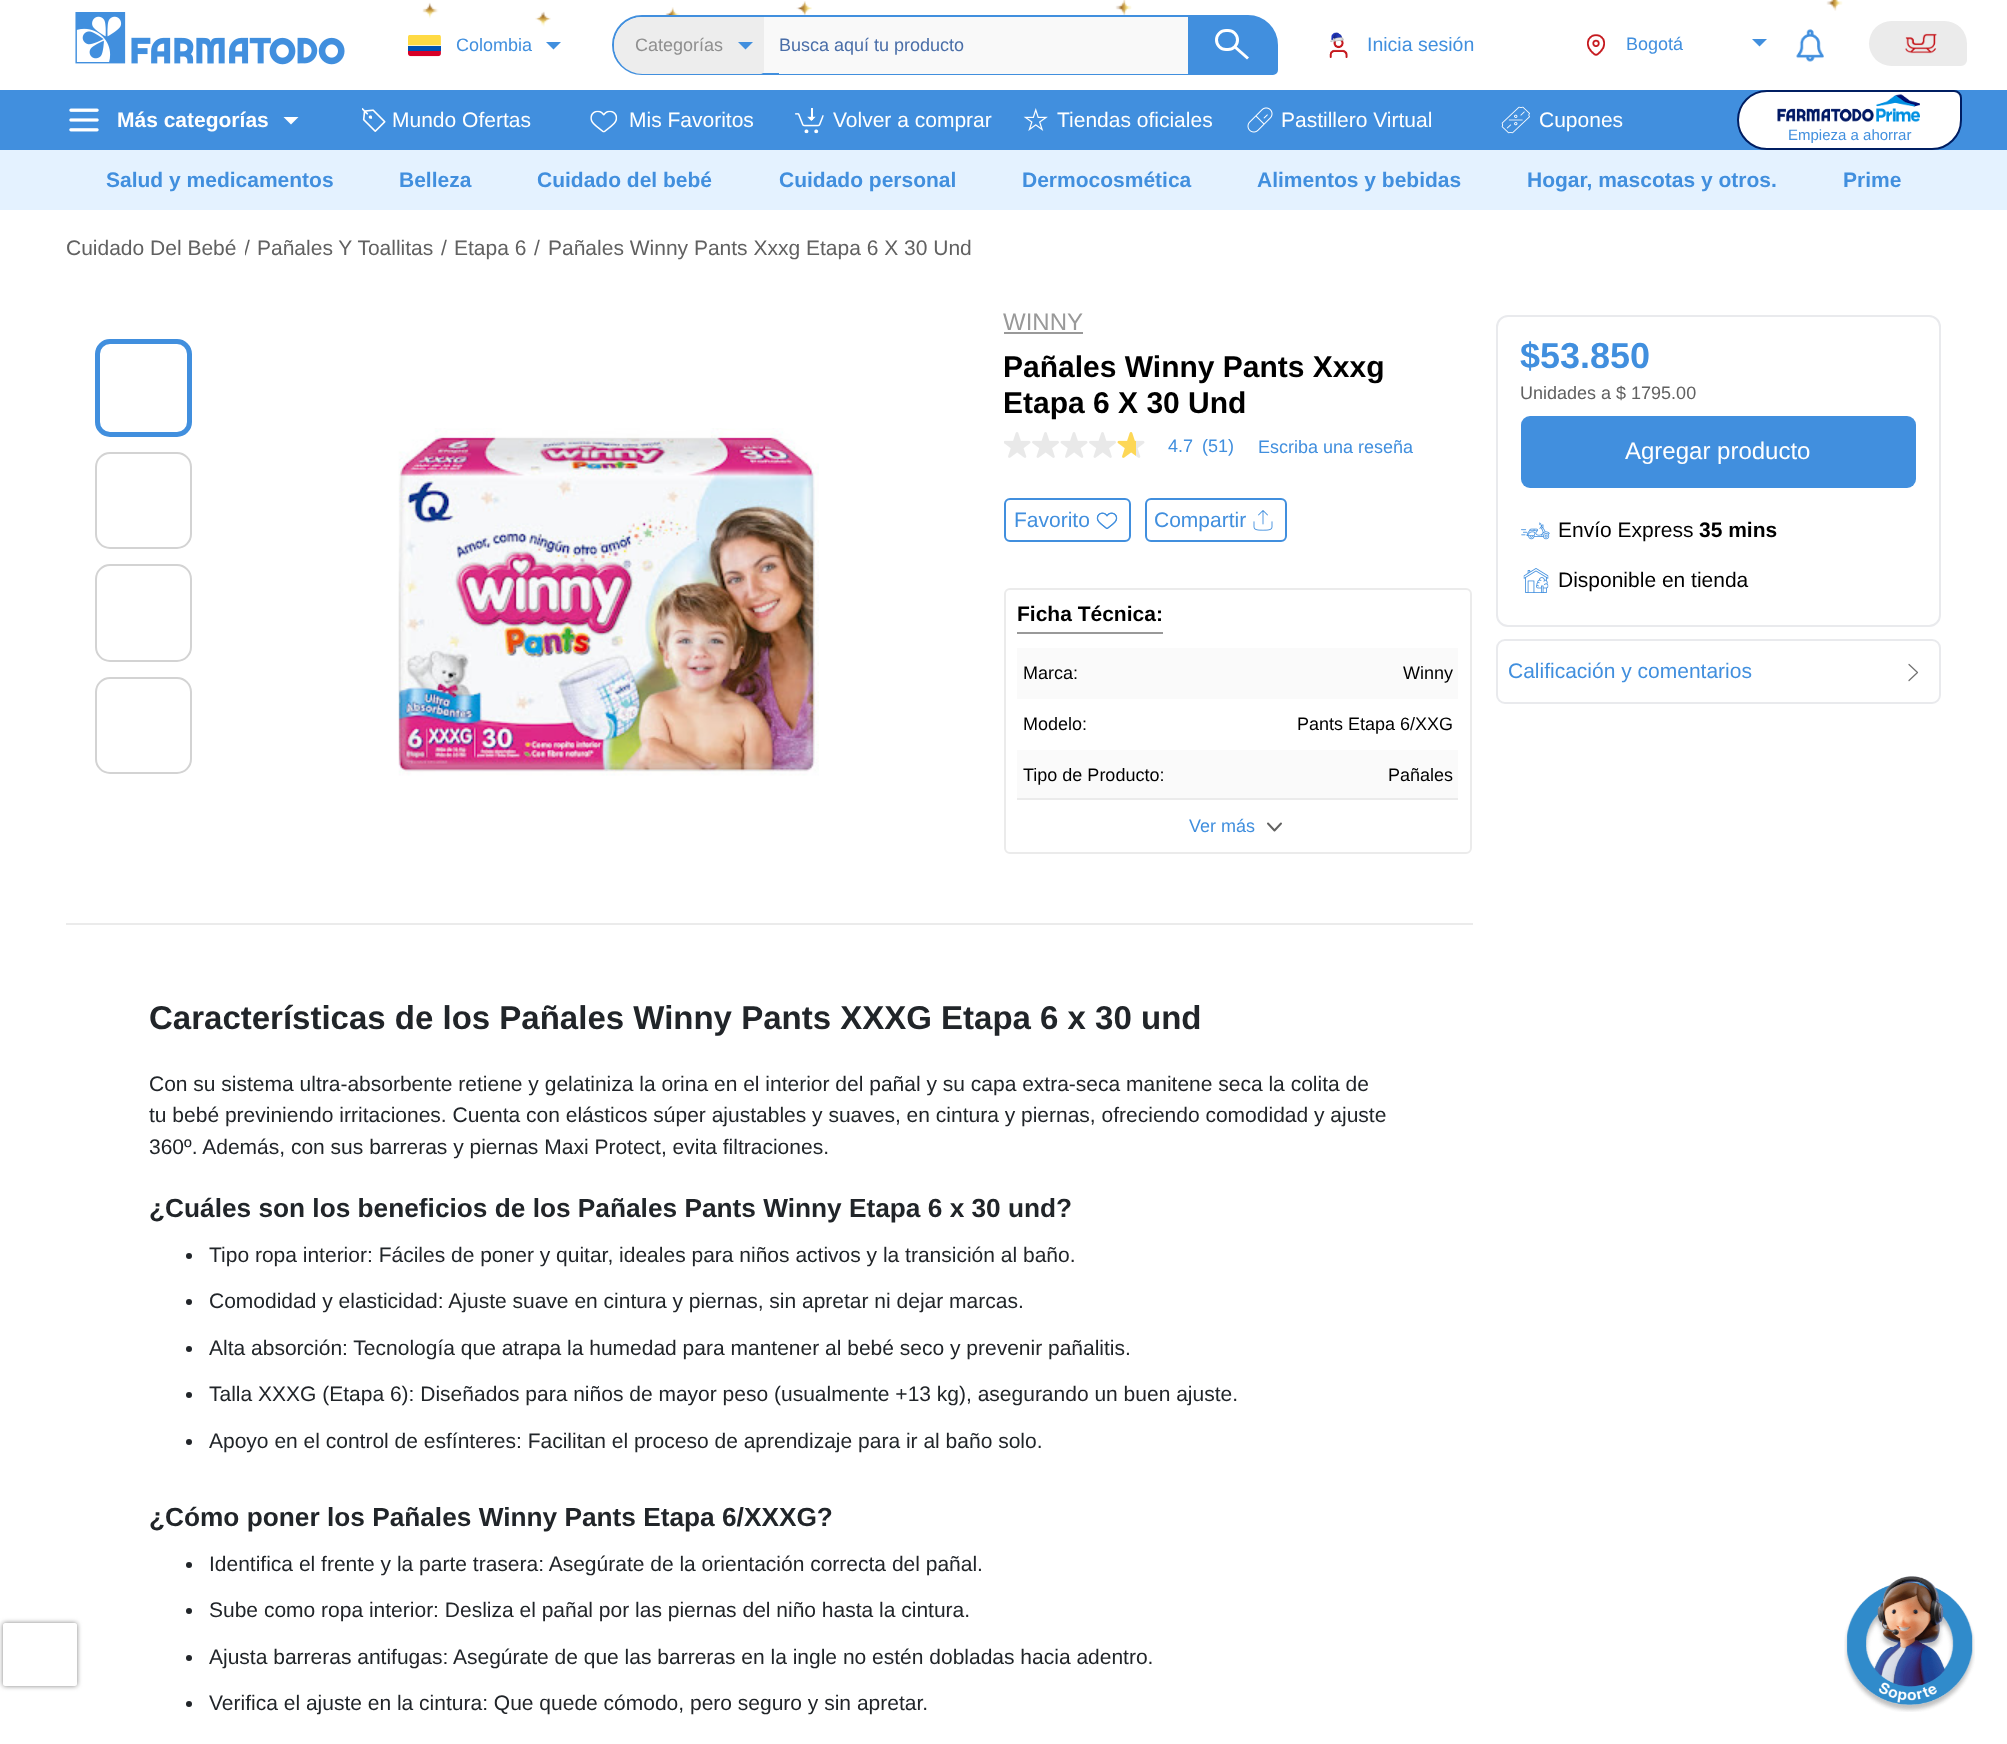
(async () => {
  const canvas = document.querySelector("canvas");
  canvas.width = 2007;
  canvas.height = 1744;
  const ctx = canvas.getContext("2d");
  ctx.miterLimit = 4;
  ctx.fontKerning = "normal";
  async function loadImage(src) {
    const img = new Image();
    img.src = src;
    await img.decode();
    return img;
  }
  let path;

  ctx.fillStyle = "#ffffff";
  ctx.fillRect(0, 0, 2007, 1744);
  ctx.save();
  path = new Path2D("M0 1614H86V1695H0ZM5 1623H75C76 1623 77 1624 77 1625V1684C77 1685 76 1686 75 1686H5C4 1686 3 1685 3 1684V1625C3 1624 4 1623 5 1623Z");
  ctx.clip(path, "evenodd");
  ctx.fillStyle = "#808080";
  ctx.filter = "blur(2.5px)";
  ctx.beginPath();
  ctx.roundRect(3, 1623, 74, 63, 2);
  ctx.fill();
  ctx.filter = "none";
  ctx.restore();
  ctx.drawImage(await loadImage("img/1.png"), 422, 0, 1421, 27);
  ctx.drawImage(await loadImage("img/2.png"), 75, 12, 270, 53);
  ctx.drawImage(await loadImage("img/3.png"), 408, 35, 33, 22);
  ctx.fillStyle = "#418fde";
  path = new Path2D("M546 42H561L553.5 49.5Z");
  ctx.fill(path);
  ctx.fillStyle = "#f9f9f9";
  ctx.beginPath();
  ctx.roundRect(613, 16, 651, 58, 29);
  ctx.fill();
  ctx.strokeStyle = "#418fde";
  ctx.lineWidth = 2;
  ctx.stroke();
  ctx.fillStyle = "#ededed";
  ctx.beginPath();
  ctx.roundRect(614, 17, 150, 57, [28.5, 0, 4, 28.5]);
  ctx.fill();
  ctx.fillStyle = "#418fde";
  path = new Path2D("M738 42H753L745.5 49.5Z");
  ctx.fill(path);
  ctx.fillStyle = "#f9f9f9";
  ctx.beginPath();
  ctx.roundRect(779, 17, 499, 57, [0, 30, 5, 0]);
  ctx.fill();
  ctx.fillStyle = "#418fde";
  ctx.beginPath();
  ctx.roundRect(1189, 16, 88, 58, [0, 29, 4, 0]);
  ctx.fill();
  ctx.stroke();
  ctx.beginPath();
  ctx.roundRect(1216.5, 30.5, 21, 19, 9.5);
  ctx.strokeStyle = "#ffffff";
  ctx.lineWidth = 3;
  ctx.stroke();
  ctx.fillStyle = "#ffffff";
  path = new Path2D("M1236 46L1249 57.5L1247 59.5L1234 48Z");
  ctx.fill(path);
  ctx.drawImage(await loadImage("img/4.png"), 1329, 32, 19, 26);
  ctx.drawImage(await loadImage("img/5.png"), 1587, 34, 18, 22);
  ctx.fillStyle = "#418fde";
  path = new Path2D("M1752 39H1767L1759.5 46.5Z");
  ctx.fill(path);
  ctx.drawImage(await loadImage("img/6.png"), 1796, 29, 28, 33);
  ctx.fillStyle = "#ebebeb";
  ctx.beginPath();
  ctx.roundRect(1869, 21, 98, 45, [22.5, 22.5, 6, 22.5]);
  ctx.fill();
  ctx.drawImage(await loadImage("img/7.png"), 1905, 33, 32, 21);
  ctx.fillStyle = "#418fde";
  ctx.fillRect(0, 90, 2007, 60);
  ctx.drawImage(await loadImage("img/8.png"), 69, 108, 30, 24);
  ctx.fillStyle = "#ffffff";
  path = new Path2D("M283.5 117H298.5L291 124.5Z");
  ctx.fill(path);
  ctx.drawImage(await loadImage("img/9.png"), 362, 108, 24, 24);
  ctx.drawImage(await loadImage("img/10.png"), 590, 110, 28, 23);
  ctx.drawImage(await loadImage("img/11.png"), 795, 108, 29, 26);
  ctx.drawImage(await loadImage("img/12.png"), 1023, 108, 25, 23);
  ctx.drawImage(await loadImage("img/13.png"), 1247, 107, 26, 26);
  ctx.drawImage(await loadImage("img/14.png"), 1501, 106, 29, 28);
  ctx.beginPath();
  ctx.roundRect(1738, 91, 223, 58, [29, 7, 29, 29]);
  ctx.fill();
  ctx.strokeStyle = "#001e62";
  ctx.lineWidth = 2;
  ctx.stroke();
  ctx.drawImage(await loadImage("img/15.png"), 1777, 94, 143, 28);
  ctx.fillStyle = "#e4f2ff";
  ctx.fillRect(0, 150, 2007, 60);
  ctx.beginPath();
  ctx.roundRect(97.5, 341.5, 92, 93, 12.5);
  ctx.strokeStyle = "#418fde";
  ctx.lineWidth = 5;
  ctx.stroke();
  ctx.beginPath();
  ctx.roundRect(96, 453, 95, 95, 14);
  ctx.strokeStyle = "#d3d3d3";
  ctx.lineWidth = 2;
  ctx.stroke();
  ctx.beginPath();
  ctx.roundRect(96, 565, 95, 96, 14);
  ctx.stroke();
  ctx.beginPath();
  ctx.roundRect(96, 678, 95, 95, 14);
  ctx.stroke();
  ctx.drawImage(await loadImage("img/16.png"), 398, 428, 421, 348);
  ctx.fillStyle = "#999999";
  ctx.fillRect(1004, 332, 79, 2);
  ctx.drawImage(await loadImage("img/17.png"), 1004, 432, 27, 26);
  ctx.drawImage(await loadImage("img/18.png"), 1032, 432, 27, 26);
  ctx.drawImage(await loadImage("img/19.png"), 1060, 432, 28, 26);
  ctx.drawImage(await loadImage("img/18.png"), 1089, 432, 27, 26);
  ctx.drawImage(await loadImage("img/20.png"), 1117, 432, 28, 26);
  ctx.beginPath();
  ctx.roundRect(1005, 499, 125, 42, 5);
  ctx.strokeStyle = "#418fde";
  ctx.stroke();
  ctx.drawImage(await loadImage("img/21.png"), 1096, 512, 22, 18);
  ctx.beginPath();
  ctx.roundRect(1146, 499, 140, 42, 5);
  ctx.stroke();
  ctx.drawImage(await loadImage("img/22.png"), 1253, 510, 20, 21);
  ctx.beginPath();
  ctx.roundRect(1005, 589, 466, 264, 5);
  ctx.strokeStyle = "#ebebeb";
  ctx.stroke();
  for (const [x, y, w, h, color] of [
    [1017, 632, 146, 2, "#999999"],
    [1017, 648, 441, 51, "#fafafa"],
    [1017, 750, 441, 48, "#fafafa"],
    [1017, 798, 441, 2, "#ebebeb"],
  ]) {
    ctx.fillStyle = color;
    ctx.fillRect(x, y, w, h);
  }
  path = new Path2D("M1268 823.5L1274.5 830.5L1281 823.5");
  ctx.strokeStyle = "#626261";
  ctx.lineCap = "round";
  ctx.lineJoin = "round";
  ctx.stroke(path);
  ctx.fillRect(66, 923, 1407, 2);
  ctx.fillStyle = "#212529";
  ctx.beginPath();
  ctx.arc(189, 1256, 3, 0, Math.PI * 2);
  ctx.fill();
  ctx.beginPath();
  ctx.arc(189, 1302, 3, 0, Math.PI * 2);
  ctx.fill();
  ctx.beginPath();
  ctx.arc(189, 1349, 3, 0, Math.PI * 2);
  ctx.fill();
  ctx.beginPath();
  ctx.arc(189, 1395, 3, 0, Math.PI * 2);
  ctx.fill();
  ctx.beginPath();
  ctx.arc(189, 1442, 3, 0, Math.PI * 2);
  ctx.fill();
  ctx.beginPath();
  ctx.arc(189, 1565, 3, 0, Math.PI * 2);
  ctx.fill();
  ctx.beginPath();
  ctx.arc(189, 1611, 3, 0, Math.PI * 2);
  ctx.fill();
  ctx.beginPath();
  ctx.arc(189, 1658, 3, 0, Math.PI * 2);
  ctx.fill();
  ctx.beginPath();
  ctx.arc(189, 1704, 3, 0, Math.PI * 2);
  ctx.fill();
  ctx.beginPath();
  ctx.roundRect(1497, 316, 443, 310, 11);
  ctx.strokeStyle = "#e9eaed";
  ctx.lineJoin = "miter";
  ctx.stroke();
  ctx.fillStyle = "#418fde";
  ctx.beginPath();
  ctx.roundRect(1521, 416, 395, 72, 9);
  ctx.fill();
  ctx.drawImage(await loadImage("img/23.png"), 1521, 522, 29, 18);
  ctx.drawImage(await loadImage("img/24.png"), 1523, 568, 26, 25);
  ctx.beginPath();
  ctx.roundRect(1497, 640, 443, 63, 8);
  ctx.stroke();
  path = new Path2D("M1909 680.5L1917.5 672.5L1909 664.5");
  ctx.strokeStyle = "#717171";
  ctx.lineWidth = 1.2;
  ctx.lineJoin = "round";
  ctx.stroke(path);
  ctx.drawImage(await loadImage("img/25.png"), 1844, 1576, 131, 136);
  ctx.font = "18px Liberation Sans";
  ctx.fillText("Colombia", 456, 51);
  ctx.fillStyle = "#8f8f8f";
  ctx.fillText("Categorías", 635, 51);
  ctx.fillStyle = "#4a6ea8";
  ctx.fillText("Busca aquí tu producto", 779, 51);
  ctx.font = "19.5px Liberation Sans";
  ctx.fillStyle = "#418fde";
  ctx.fillText("Inicia sesión", 1367, 51);
  ctx.font = "18px Liberation Sans";
  ctx.fillText("Bogotá", 1626, 50);
  ctx.font = "bold 21px Liberation Sans";
  ctx.fillStyle = "#ffffff";
  ctx.fillText("Más categorías", 117, 127);
  ctx.font = "21px Liberation Sans";
  for (const [text, x, y] of [
    ["Mundo Ofertas", 392, 127],
    ["Mis Favoritos", 629, 127],
    ["Volver a comprar", 833, 127],
    ["Tiendas oficiales", 1057, 127],
    ["Pastillero Virtual", 1281, 127],
    ["Cupones", 1539, 127],
  ]) {
    ctx.fillText(text, x, y);
  }
  ctx.font = "15px Liberation Sans";
  ctx.fillStyle = "#418fde";
  ctx.fillText("Empieza a ahorrar", 1788, 140);
  ctx.font = "bold 21px Liberation Sans";
  for (const [text, x, y] of [
    ["Salud y medicamentos", 106, 187],
    ["Belleza", 399, 187],
    ["Cuidado del bebé", 537, 187],
    ["Cuidado personal", 779, 187],
    ["Dermocosmética", 1022, 187],
    ["Alimentos y bebidas", 1257, 187],
    ["Hogar, mascotas y otros.", 1527, 187],
    ["Prime", 1843, 187],
  ]) {
    ctx.fillText(text, x, y);
  }
  ctx.font = "21px Liberation Sans";
  ctx.fillStyle = "#616161";
  ctx.fillText("Cuidado Del Bebé", 66, 255);
  ctx.save();
  ctx.beginPath();
  ctx.rect(245, 233, 6, 31);
  ctx.clip();
  ctx.fillText("/", 244, 255);
  ctx.restore();
  for (const [text, x, y] of [
    ["Pañales Y Toallitas", 257, 255],
    ["/", 441, 255],
    ["Etapa 6", 454, 255],
    ["/", 534, 255],
    ["Pañales Winny Pants Xxxg Etapa 6 X 30 Und", 548, 255],
  ]) {
    ctx.fillText(text, x, y);
  }
  ctx.font = "24px Liberation Sans";
  ctx.fillStyle = "#999999";
  ctx.fillText("WINNY", 1003, 330);
  ctx.font = "bold 30px Liberation Sans";
  ctx.fillStyle = "#000000";
  ctx.fillText("Pañales Winny Pants Xxxg", 1003, 377);
  ctx.fillText("Etapa 6 X 30 Und", 1003, 413);
  ctx.font = "18px Liberation Sans";
  ctx.fillStyle = "#418fde";
  for (const [text, x, y] of [
    ["4.7", 1168, 452],
    ["(51)", 1202, 452],
    ["Escriba una reseña", 1258, 453],
  ]) {
    ctx.fillText(text, x, y);
  }
  ctx.font = "21px Liberation Sans";
  ctx.fillText("Favorito", 1014, 527);
  ctx.fillText("Compartir", 1154, 527);
  ctx.font = "bold 21px Liberation Sans";
  ctx.fillStyle = "#000000";
  ctx.fillText("Ficha Técnica:", 1017, 621);
  ctx.font = "18px Liberation Sans";
  for (const [text, x, y] of [
    ["Marca:", 1023, 679],
    ["Winny", 1403, 679],
    ["Modelo:", 1023, 730],
    ["Pants Etapa 6/XXG", 1297, 730],
    ["Tipo de Producto:", 1023, 781],
    ["Pañales", 1388, 781],
  ]) {
    ctx.fillText(text, x, y);
  }
  ctx.fillStyle = "#418fde";
  ctx.fillText("Ver más", 1189, 832);
  ctx.font = "bold 33px Liberation Sans";
  ctx.fillStyle = "#212529";
  ctx.fillText("Características de los Pañales Winny Pants XXXG Etapa 6 x 30 und", 149, 1029);
  ctx.font = "21px Liberation Sans";
  for (const [text, x, y] of [
    ["Con su sistema ultra-absorbente retiene y gelatiniza la orina en el interior del pañal y su capa extra-seca manitene seca la colita de", 149, 1091],
    ["tu bebé previniendo irritaciones. Cuenta con elásticos súper ajustables y suaves, en cintura y piernas, ofreciendo comodidad y ajuste", 149, 1122],
    ["360º. Además, con sus barreras y piernas Maxi Protect, evita filtraciones.", 149, 1154],
  ]) {
    ctx.fillText(text, x, y);
  }
  ctx.font = "bold 26.25px Liberation Sans";
  ctx.fillText("¿Cuáles son los beneficios de los Pañales Pants Winny Etapa 6 x 30 und?", 149, 1217);
  ctx.font = "21px Liberation Sans";
  for (const [text, x, y] of [
    ["Tipo ropa interior: Fáciles de poner y quitar, ideales para niños activos y la transición al baño.", 209, 1262],
    ["Comodidad y elasticidad: Ajuste suave en cintura y piernas, sin apretar ni dejar marcas.", 209, 1308],
    ["Alta absorción: Tecnología que atrapa la humedad para mantener al bebé seco y prevenir pañalitis.", 209, 1355],
    ["Talla XXXG (Etapa 6): Diseñados para niños de mayor peso (usualmente +13 kg), asegurando un buen ajuste.", 209, 1401],
    ["Apoyo en el control de esfínteres: Facilitan el proceso de aprendizaje para ir al baño solo.", 209, 1448],
  ]) {
    ctx.fillText(text, x, y);
  }
  ctx.font = "bold 26.25px Liberation Sans";
  ctx.fillText("¿Cómo poner los Pañales Winny Pants Etapa 6/XXXG?", 149, 1526);
  ctx.font = "21px Liberation Sans";
  for (const [text, x, y] of [
    ["Identifica el frente y la parte trasera: Asegúrate de la orientación correcta del pañal.", 209, 1571],
    ["Sube como ropa interior: Desliza el pañal por las piernas del niño hasta la cintura.", 209, 1617],
    ["Ajusta barreras antifugas: Asegúrate de que las barreras en la ingle no estén dobladas hacia adentro.", 209, 1664],
    ["Verifica el ajuste en la cintura: Que quede cómodo, pero seguro y sin apretar.", 209, 1710],
  ]) {
    ctx.fillText(text, x, y);
  }
  ctx.font = "bold 36px Liberation Sans";
  ctx.fillStyle = "#418fde";
  ctx.fillText("$53.850", 1520, 368);
  ctx.font = "18px Liberation Sans";
  ctx.fillStyle = "#616161";
  ctx.fillText("Unidades a $ 1795.00", 1520, 399);
  ctx.font = "24px Liberation Sans";
  ctx.fillStyle = "#ffffff";
  ctx.fillText("Agregar producto", 1625, 459);
  ctx.font = "21px Liberation Sans";
  ctx.fillStyle = "#000000";
  ctx.fillText("Envío Express", 1558, 537);
  ctx.font = "bold 21px Liberation Sans";
  ctx.fillText("35 mins", 1699, 537);
  ctx.font = "21px Liberation Sans";
  ctx.fillText("Disponible en tienda", 1558, 587);
  ctx.fillStyle = "#418fde";
  ctx.fillText("Calificación y comentarios", 1508, 678);
})();
